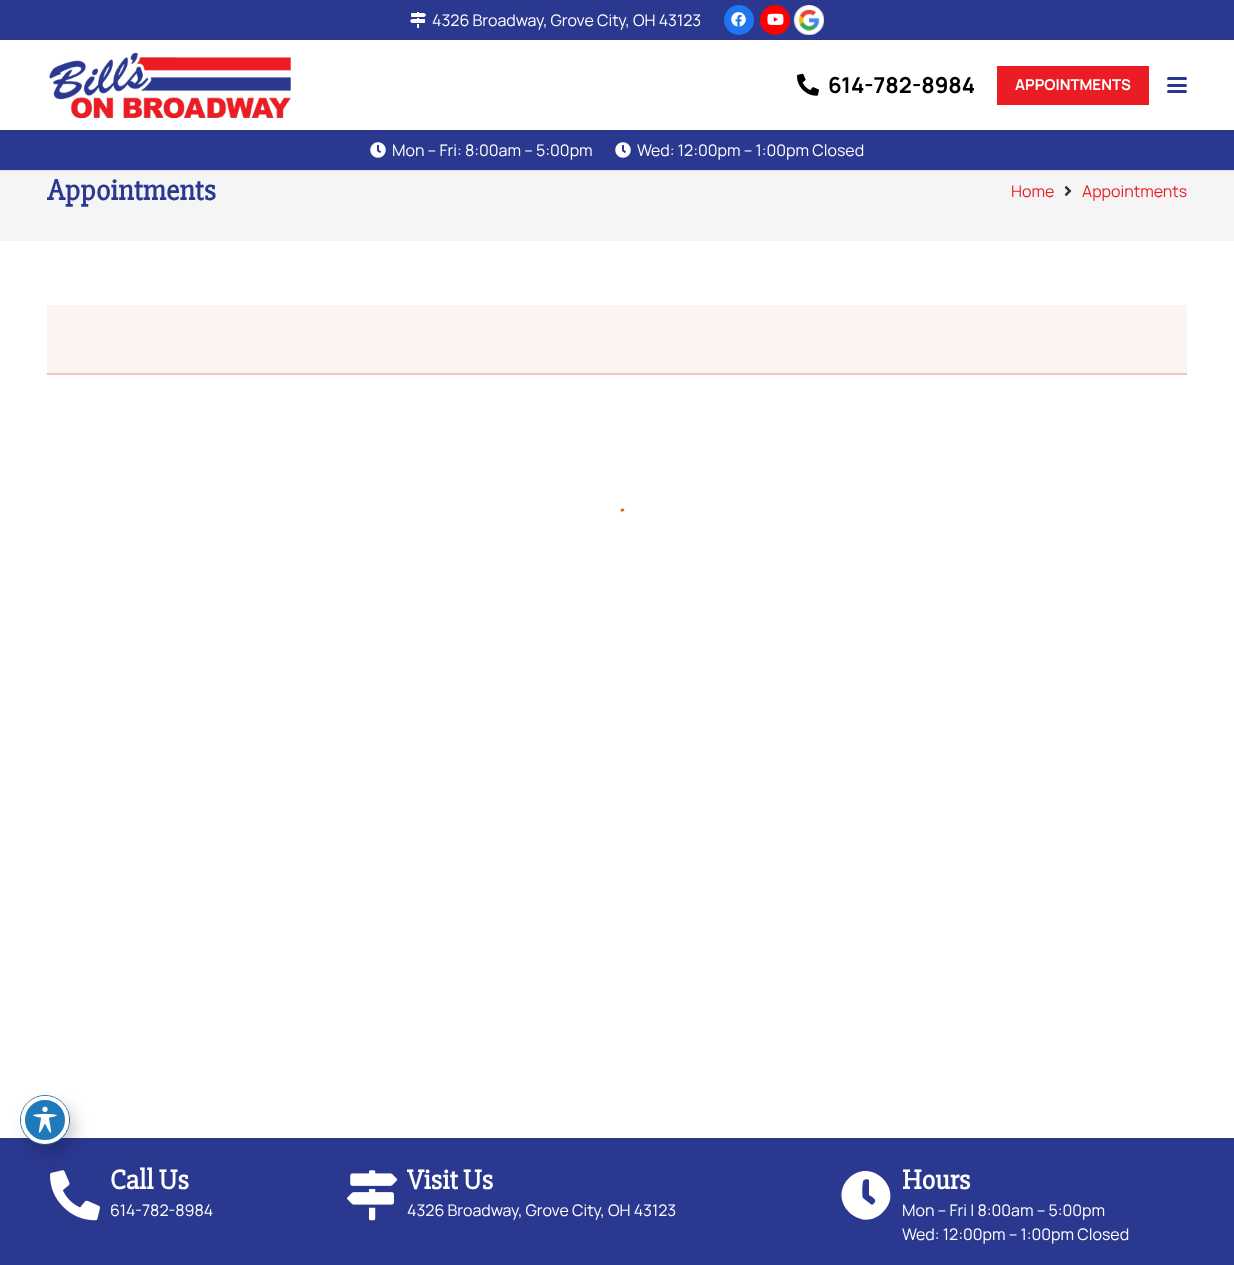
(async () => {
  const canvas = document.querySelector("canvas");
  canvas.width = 1234;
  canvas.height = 1265;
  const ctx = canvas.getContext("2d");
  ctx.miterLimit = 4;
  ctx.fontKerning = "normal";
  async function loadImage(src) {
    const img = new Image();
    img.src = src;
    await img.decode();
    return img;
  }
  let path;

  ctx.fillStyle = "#ffffff";
  ctx.fillRect(0, 0, 1234, 1265);
  ctx.fillStyle = "#2a3890";
  ctx.fillRect(0, 0, 1234, 40);
  ctx.drawImage(await loadImage("img/1.png"), 410, 12, 16, 16);
  ctx.fillStyle = "#1e77f0";
  ctx.beginPath();
  ctx.arc(739, 20, 15, 0, Math.PI * 2);
  ctx.fill();
  ctx.drawImage(await loadImage("img/2.png"), 731, 12, 15, 15);
  ctx.fillStyle = "#ff0000";
  ctx.beginPath();
  ctx.arc(775, 20, 15, 0, Math.PI * 2);
  ctx.fill();
  ctx.drawImage(await loadImage("img/3.png"), 767, 13, 17, 12);
  ctx.drawImage(await loadImage("img/4.png"), 793, 5, 31, 30);
  ctx.drawImage(await loadImage("img/5.png"), 49, 52, 242, 67);
  ctx.drawImage(await loadImage("img/6.png"), 797, 73, 22, 23);
  ctx.fillStyle = "#eb1c24";
  ctx.fillRect(997, 66, 152, 39);
  ctx.fillStyle = "#2a3890";
  ctx.beginPath();
  ctx.roundRect(1167, 84, 20, 3, 1.5);
  ctx.fill();
  ctx.beginPath();
  ctx.roundRect(1167, 77, 20, 3, 1.5);
  ctx.fill();
  ctx.beginPath();
  ctx.roundRect(1167, 90, 20, 3, 1.5);
  ctx.fill();
  ctx.fillStyle = "#e1e1e1";
  ctx.fillRect(0, 170, 1234, 1);
  ctx.fillStyle = "#2a3890";
  ctx.fillRect(0, 130, 1234, 40);
  ctx.drawImage(await loadImage("img/7.png"), 370, 142, 16, 16);
  ctx.drawImage(await loadImage("img/7.png"), 615, 142, 16, 16);
  ctx.fillStyle = "#f5f5f5";
  ctx.fillRect(0, 171, 1234, 70);
  ctx.drawImage(await loadImage("img/8.png"), 1064, 186, 8, 10);
  ctx.drawImage(await loadImage("img/9.png"), 47, 305, 1140, 208);
  ctx.fillStyle = "#2a3890";
  ctx.fillRect(0, 1138, 1234, 127);
  ctx.beginPath();
  ctx.arc(45, 1120, 24.5, 0, Math.PI * 2);
  ctx.strokeStyle = "#1e7ab9";
  ctx.stroke();
  ctx.drawImage(await loadImage("img/11.png"), 50, 1170, 50, 51);
  ctx.fillStyle = "rgba(0, 0, 0, 0.2)";
  ctx.filter = "blur(8px)";
  ctx.beginPath();
  ctx.roundRect(27, 1104, 48, 48, 24);
  ctx.fill();
  ctx.filter = "none";
  ctx.fillStyle = "#1e7ab9";
  ctx.beginPath();
  ctx.arc(45, 1120, 22, 0, Math.PI * 2);
  ctx.fill();
  ctx.strokeStyle = "#ffffff";
  ctx.lineWidth = 4;
  ctx.stroke();
  ctx.drawImage(await loadImage("img/10.png"), 33, 1106, 24, 27);
  ctx.drawImage(await loadImage("img/12.png"), 347, 1170, 51, 51);
  ctx.fillStyle = "#ffffff";
  path = new Path2D("M849 1178C871 1156 906 1190 883 1212C861 1235 826 1201 849 1178ZM875 1202C877 1199 870 1196 869 1195V1180C868 1179 865 1179 864 1180C862 1180 862 1196 863 1198L868 1202C872 1205 872 1206 875 1202Z");
  ctx.fill(path);
  ctx.font = "16px Manrope";
  ctx.fillText("4326 Broadway, Grove City, OH 43123", 432, 26);
  ctx.font = "bold 22px Manrope";
  ctx.fillStyle = "#000000";
  ctx.fillText("614-782-8984", 828, 93);
  ctx.font = "bold 15px Manrope";
  ctx.fillStyle = "#ffffff";
  ctx.fillText("APPOINTMENTS", 1015, 90);
  ctx.font = "16px Manrope";
  ctx.fillText("Mon – Fri: 8:00am – 5:00pm", 392, 156);
  ctx.fillText("Wed: 12:00pm – 1:00pm Closed", 637, 156);
  ctx.font = "bold 30px 'Slabo 27px'";
  ctx.fillStyle = "#2a3890";
  ctx.fillText("Appointments", 47, 200);
  ctx.font = "16px Manrope";
  ctx.fillStyle = "#eb1c24";
  ctx.fillText("Home", 1011, 197);
  ctx.fillText("Appointments", 1082, 197);
  ctx.font = "bold 28px 'Slabo 27px'";
  ctx.fillStyle = "#ffffff";
  ctx.fillText("Call Us", 110, 1189);
  ctx.font = "16px Manrope";
  ctx.fillText("614-782-8984", 110, 1216);
  ctx.font = "bold 28px 'Slabo 27px'";
  ctx.fillText("Visit Us", 407, 1189);
  ctx.font = "16px Manrope";
  ctx.fillText("4326 Broadway, Grove City, OH 43123", 407, 1216);
  ctx.font = "bold 28px 'Slabo 27px'";
  ctx.fillText("Hours", 902, 1189);
  ctx.font = "16px Manrope";
  ctx.fillText("Mon – Fri | 8:00am – 5:00pm", 902, 1216);
  ctx.fillText("Wed: 12:00pm – 1:00pm Closed", 902, 1240);
})();
